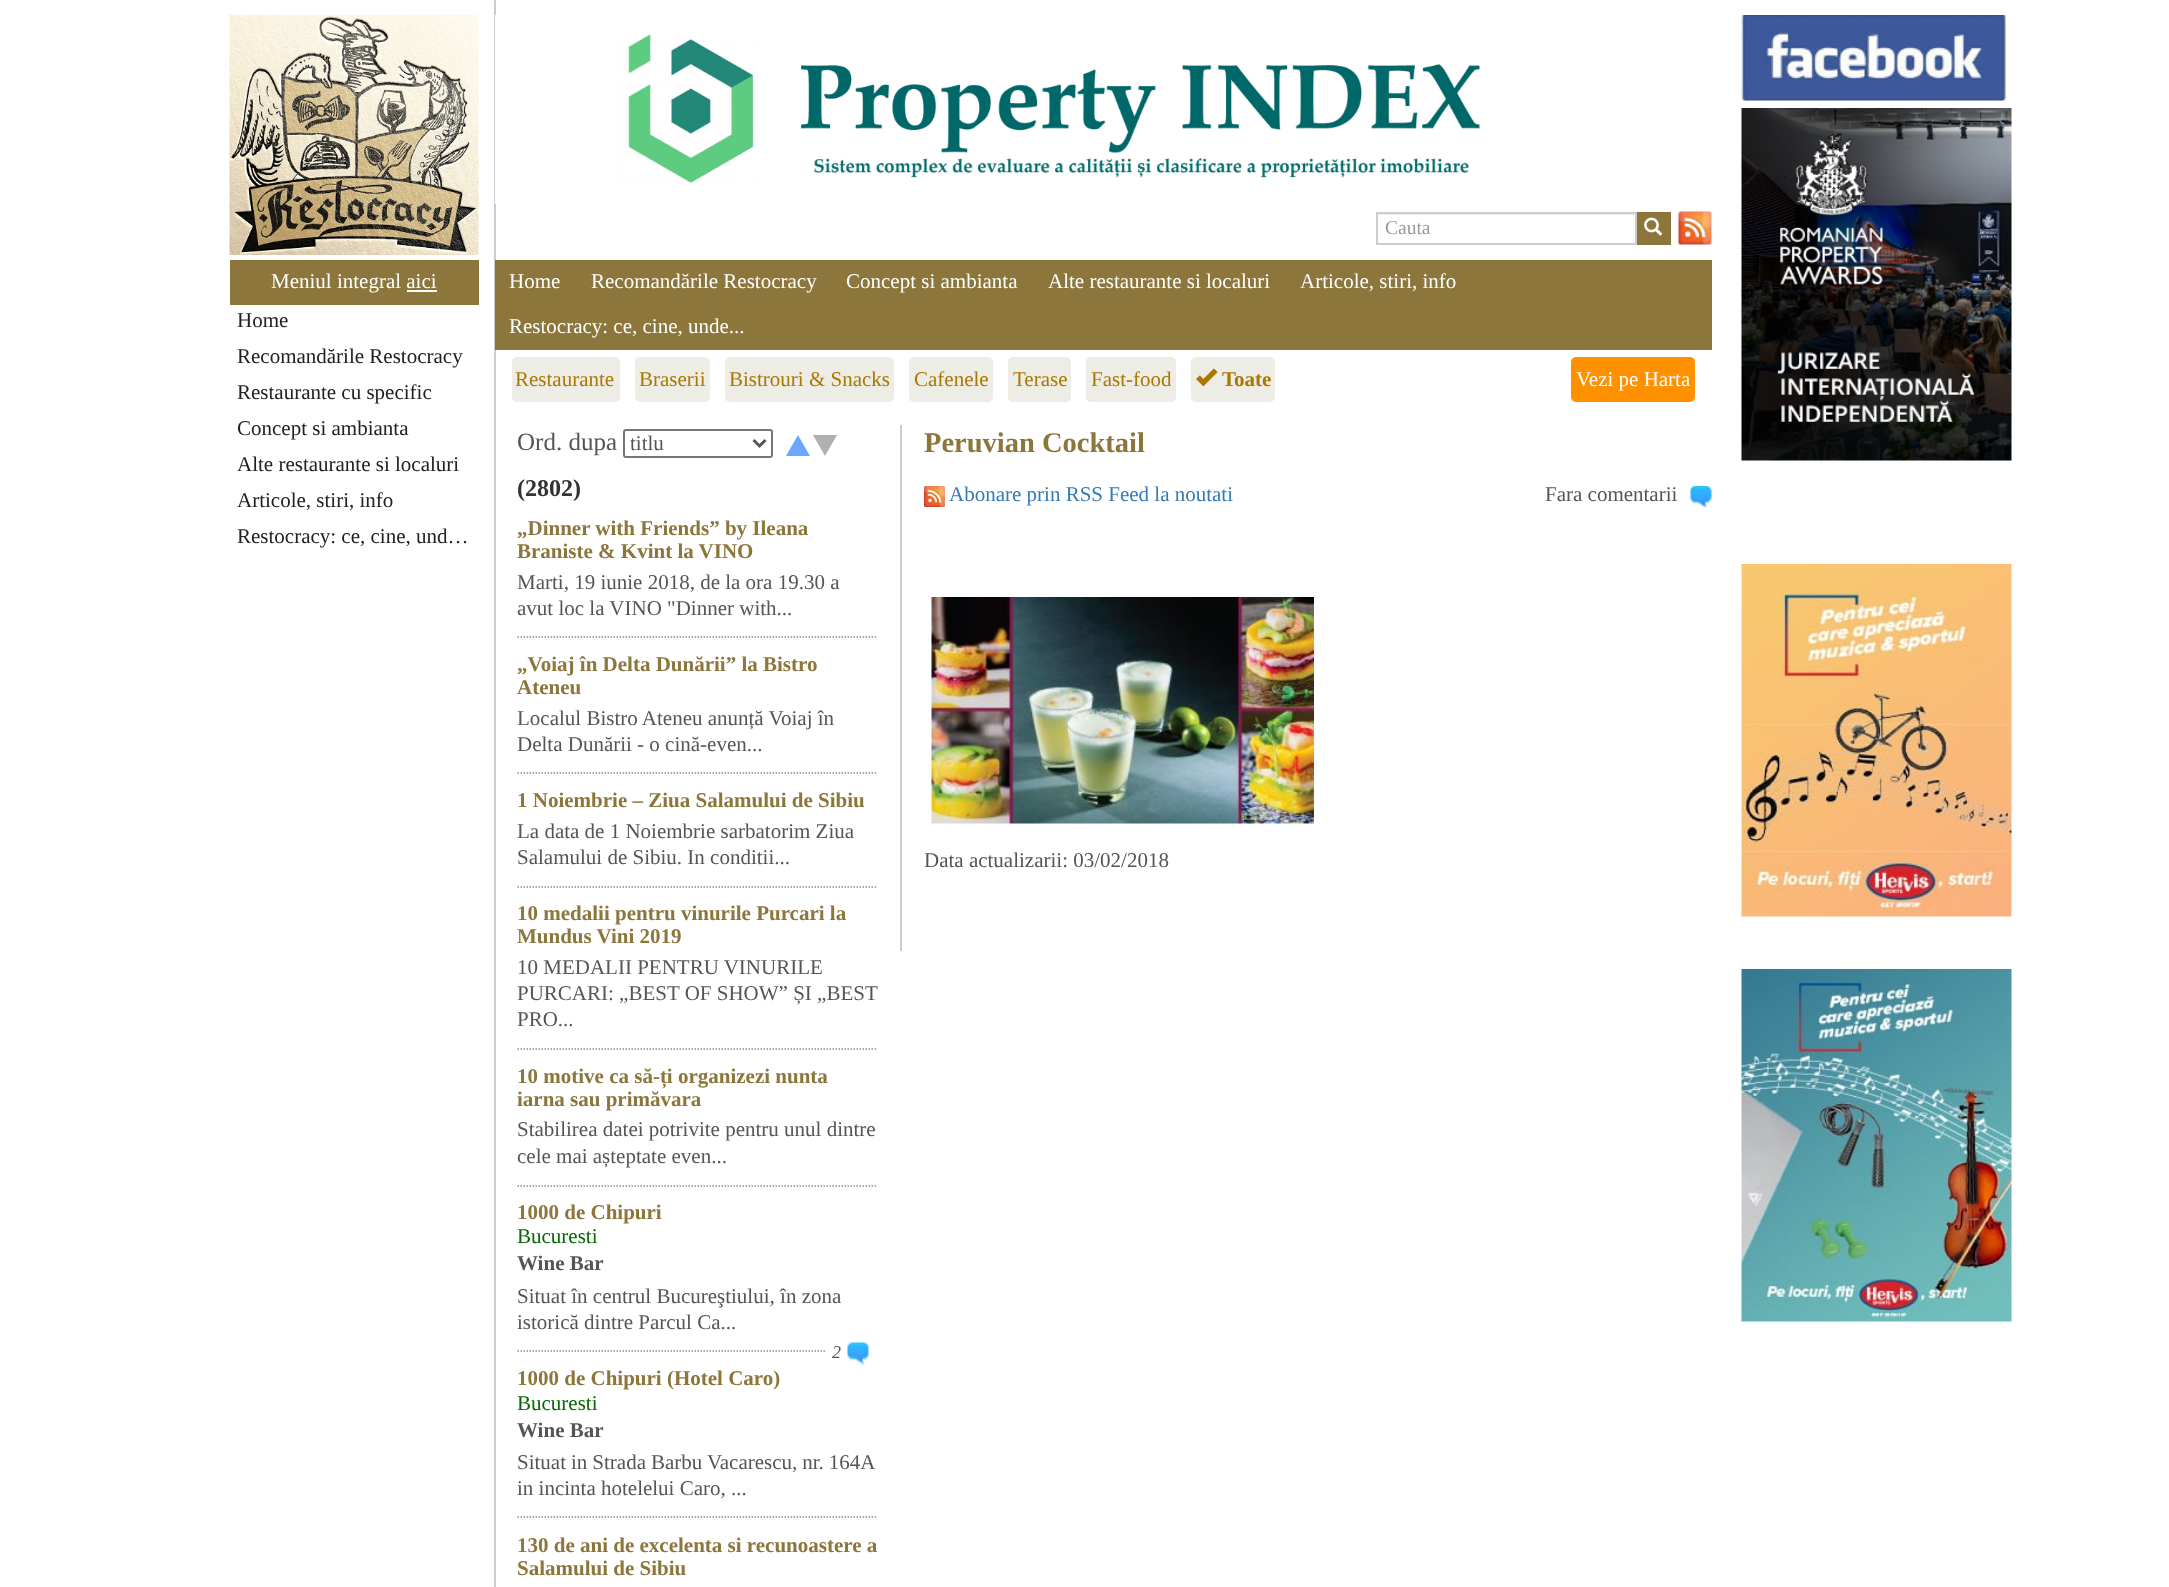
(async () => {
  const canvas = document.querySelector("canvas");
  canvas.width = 2169;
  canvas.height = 1587;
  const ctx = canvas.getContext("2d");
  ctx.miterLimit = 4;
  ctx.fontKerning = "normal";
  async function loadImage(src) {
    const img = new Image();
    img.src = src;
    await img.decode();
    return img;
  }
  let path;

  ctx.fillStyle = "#ffffff";
  ctx.fillRect(0, 0, 2169, 1587);
  ctx.drawImage(await loadImage("img/1.png"), 229, 15, 250, 240);
  for (const [x, y, w, h, color] of [
    [230, 260, 249, 45, "#8c763c"],
    [407, 290, 30, 2, "#ffffff"],
    [494, 0, 2, 1587, "#cccccc"],
  ]) {
    ctx.fillStyle = color;
    ctx.fillRect(x, y, w, h);
  }
  ctx.drawImage(await loadImage("img/2.png"), 495, 15, 985, 189);
  ctx.fillStyle = "#ececec";
  ctx.fillRect(1377, 214, 258, 1);
  ctx.strokeStyle = "#cccccc";
  ctx.lineWidth = 2;
  ctx.strokeRect(1377, 213, 259, 31);
  ctx.fillStyle = "#8c763c";
  ctx.fillRect(1637, 212, 34, 33);
  ctx.drawImage(await loadImage("img/3.png"), 1644, 217, 19, 19);
  ctx.drawImage(await loadImage("img/4.png"), 1678, 211, 34, 34);
  ctx.fillRect(495, 260, 1217, 90);
  ctx.fillStyle = "#edede6";
  ctx.beginPath();
  ctx.roundRect(512, 357, 108, 45, 5);
  ctx.fill();
  ctx.beginPath();
  ctx.roundRect(635, 357, 75, 45, 5);
  ctx.fill();
  ctx.beginPath();
  ctx.roundRect(725, 357, 169, 45, 5);
  ctx.fill();
  ctx.beginPath();
  ctx.roundRect(909, 357, 84, 45, 5);
  ctx.fill();
  ctx.beginPath();
  ctx.roundRect(1008, 357, 63, 45, 5);
  ctx.fill();
  ctx.beginPath();
  ctx.roundRect(1086, 357, 90, 45, 5);
  ctx.fill();
  ctx.beginPath();
  ctx.roundRect(1191, 357, 84, 45, 5);
  ctx.fill();
  ctx.drawImage(await loadImage("img/5.png"), 1196, 368, 22, 19);
  ctx.fillStyle = "#ff9000";
  ctx.beginPath();
  ctx.roundRect(1571, 357, 124, 45, 5);
  ctx.fill();
  ctx.beginPath();
  ctx.roundRect(624, 430, 148, 27, 2);
  ctx.strokeStyle = "#767676";
  ctx.stroke();
  path = new Path2D("M753.5 440L759.5 446L765.5 440");
  ctx.strokeStyle = "#555555";
  ctx.lineWidth = 3;
  ctx.stroke(path);
  ctx.fillStyle = "#6ca7ff";
  path = new Path2D("M810 456H786L798 435Z");
  ctx.fill(path);
  ctx.fillStyle = "#b0b0b0";
  path = new Path2D("M813 435H837L825 456Z");
  ctx.fill(path);
  path = new Path2D("M517.5 637H877.5");
  ctx.strokeStyle = "#8f8f8f";
  ctx.lineWidth = 1.5;
  ctx.setLineDash([1.5, 1.5]);
  ctx.stroke(path);
  path = new Path2D("M517.5 773H877.5");
  ctx.stroke(path);
  path = new Path2D("M517.5 887H877.5");
  ctx.stroke(path);
  path = new Path2D("M517.5 1049H877.5");
  ctx.stroke(path);
  path = new Path2D("M517.5 1186H877.5");
  ctx.stroke(path);
  path = new Path2D("M517.5 1351H877.5");
  ctx.stroke(path);
  ctx.fillStyle = "#ffffff";
  ctx.fillRect(826, 1350, 50, 2);
  ctx.drawImage(await loadImage("img/6.png"), 847, 1342, 22, 23);
  path = new Path2D("M517.5 1517H877.5");
  ctx.stroke(path);
  ctx.fillStyle = "#cccccc";
  ctx.fillRect(900, 425, 2, 526);
  ctx.drawImage(await loadImage("img/7.png"), 924, 486, 21, 21);
  ctx.drawImage(await loadImage("img/8.png"), 1690, 486, 22, 21);
  ctx.drawImage(await loadImage("img/9.png"), 931, 597, 383, 227);
  ctx.drawImage(await loadImage("img/10.png"), 1741, 15, 265, 86);
  ctx.drawImage(await loadImage("img/11.png"), 1741, 108, 271, 353);
  ctx.drawImage(await loadImage("img/12.png"), 1741, 564, 271, 353);
  ctx.drawImage(await loadImage("img/13.png"), 1741, 969, 271, 353);
  ctx.font = "21px Liberation Serif";
  ctx.fillStyle = "#ffffff";
  ctx.fillText("Meniul integral aici", 271, 288);
  ctx.fillStyle = "#212121";
  for (const [text, x, y] of [
    ["Home", 237, 327],
    ["Recomandările Restocracy", 237, 363],
    ["Restaurante cu specific", 237, 399],
    ["Concept si ambianta", 237, 435],
    ["Alte restaurante si localuri", 237, 471],
    ["Articole, stiri, info", 237, 507],
    ["Restocracy: ce, cine, und…", 237, 543],
  ]) {
    ctx.fillText(text, x, y);
  }
  ctx.font = "19.5px Liberation Serif";
  ctx.fillStyle = "#999999";
  ctx.fillText("Cauta", 1385, 234);
  ctx.font = "21px Liberation Serif";
  ctx.fillStyle = "#ffffff";
  for (const [text, x, y] of [
    ["Home", 509, 288],
    ["Recomandările Restocracy", 591, 288],
    ["Concept si ambianta", 846, 288],
    ["Alte restaurante si localuri", 1048, 288],
    ["Articole, stiri, info", 1300, 288],
    ["Restocracy: ce, cine, unde...", 509, 333],
  ]) {
    ctx.fillText(text, x, y);
  }
  ctx.fillStyle = "#aa7700";
  for (const [text, x, y] of [
    ["Restaurante", 515, 386],
    ["Braserii", 639, 386],
    ["Bistrouri & Snacks", 729, 386],
    ["Cafenele", 914, 386],
    ["Terase", 1013, 386],
    ["Fast-food", 1091, 386],
  ]) {
    ctx.fillText(text, x, y);
  }
  ctx.font = "bold 21px Liberation Serif";
  ctx.fillText("Toate", 1222, 386);
  ctx.font = "21px Liberation Serif";
  ctx.fillStyle = "#ffffff";
  ctx.fillText("Vezi pe Harta", 1576, 386);
  ctx.font = "25px Liberation Serif";
  ctx.fillStyle = "#555555";
  ctx.fillText("Ord. dupa", 517, 450);
  ctx.font = "21px Liberation Serif";
  ctx.fillText("titlu", 630, 450);
  ctx.font = "bold 24px Liberation Serif";
  ctx.fillStyle = "#333333";
  ctx.fillText("(2802)", 517, 496);
  ctx.font = "bold 21px Liberation Serif";
  ctx.fillStyle = "#8c763c";
  ctx.fillText("„Dinner with Friends” by Ileana", 517, 535);
  ctx.fillText("Braniste & Kvint la VINO", 517, 558);
  ctx.font = "21px Liberation Serif";
  ctx.fillStyle = "#555555";
  ctx.fillText("Marti, 19 iunie 2018, de la ora 19.30 a", 517, 589);
  ctx.fillText("avut loc la VINO \"Dinner with...", 517, 615);
  ctx.font = "bold 21px Liberation Serif";
  ctx.fillStyle = "#8c763c";
  ctx.fillText("„Voiaj în Delta Dunării” la Bistro", 517, 671);
  ctx.fillText("Ateneu", 517, 694);
  ctx.font = "21px Liberation Serif";
  ctx.fillStyle = "#555555";
  ctx.fillText("Localul Bistro Ateneu anunță Voiaj în", 517, 725);
  ctx.fillText("Delta Dunării - o cină-even...", 517, 751);
  ctx.font = "bold 21px Liberation Serif";
  ctx.fillStyle = "#8c763c";
  ctx.fillText("1 Noiembrie – Ziua Salamului de Sibiu", 517, 807);
  ctx.font = "21px Liberation Serif";
  ctx.fillStyle = "#555555";
  ctx.fillText("La data de 1 Noiembrie sarbatorim Ziua", 517, 838);
  ctx.fillText("Salamului de Sibiu. In conditii...", 517, 864);
  ctx.font = "bold 21px Liberation Serif";
  ctx.fillStyle = "#8c763c";
  ctx.fillText("10 medalii pentru vinurile Purcari la", 517, 920);
  ctx.fillText("Mundus Vini 2019", 517, 943);
  ctx.font = "21px Liberation Serif";
  ctx.fillStyle = "#555555";
  for (const [text, x, y] of [
    ["10 MEDALII PENTRU VINURILE", 517, 974],
    ["PURCARI: „BEST OF SHOW” ȘI „BEST", 517, 1000],
    ["PRO...", 517, 1026],
  ]) {
    ctx.fillText(text, x, y);
  }
  ctx.font = "bold 21px Liberation Serif";
  ctx.fillStyle = "#8c763c";
  ctx.fillText("10 motive ca să-ți organizezi nunta", 517, 1083);
  ctx.fillText("iarna sau primăvara", 517, 1106);
  ctx.font = "21px Liberation Serif";
  ctx.fillStyle = "#555555";
  ctx.fillText("Stabilirea datei potrivite pentru unul dintre", 517, 1136);
  ctx.fillText("cele mai așteptate even...", 517, 1163);
  ctx.font = "bold 21px Liberation Serif";
  ctx.fillStyle = "#8c763c";
  ctx.fillText("1000 de Chipuri", 517, 1219);
  ctx.font = "21px Liberation Serif";
  ctx.fillStyle = "#056603";
  ctx.fillText("Bucuresti", 517, 1243);
  ctx.font = "bold 21px Liberation Serif";
  ctx.fillStyle = "#555555";
  ctx.fillText("Wine Bar", 517, 1270);
  ctx.font = "21px Liberation Serif";
  ctx.fillText("Situat în centrul Bucureştiului, în zona", 517, 1303);
  ctx.fillText("istorică dintre Parcul Ca...", 517, 1329);
  ctx.font = "italic 18px Liberation Serif";
  ctx.fillText("2", 832, 1358);
  ctx.font = "bold 21px Liberation Serif";
  ctx.fillStyle = "#8c763c";
  ctx.fillText("1000 de Chipuri (Hotel Caro)", 517, 1385);
  ctx.font = "21px Liberation Serif";
  ctx.fillStyle = "#056603";
  ctx.fillText("Bucuresti", 517, 1410);
  ctx.font = "bold 21px Liberation Serif";
  ctx.fillStyle = "#555555";
  ctx.fillText("Wine Bar", 517, 1437);
  ctx.wordSpacing = "-0.25px";
  ctx.font = "21px Liberation Serif";
  ctx.fillText("Situat in Strada Barbu Vacarescu, nr. 164A", 517, 1469);
  ctx.wordSpacing = "0px";
  ctx.fillText("in incinta hotelelui Caro, ...", 517, 1495);
  ctx.font = "bold 21px Liberation Serif";
  ctx.fillStyle = "#8c763c";
  ctx.fillText("130 de ani de excelenta si recunoastere a", 517, 1552);
  ctx.fillText("Salamului de Sibiu", 517, 1575);
  ctx.font = "bold 28.5px Liberation Serif";
  ctx.fillText("Peruvian Cocktail", 924, 452);
  ctx.font = "21px Liberation Serif";
  ctx.fillStyle = "#337ab7";
  ctx.fillText("Abonare prin RSS Feed la noutati", 949, 501);
  ctx.fillStyle = "#555555";
  ctx.fillText("Fara comentarii", 1545, 501);
  ctx.fillText("Data actualizarii: 03/02/2018", 924, 867);
})();
